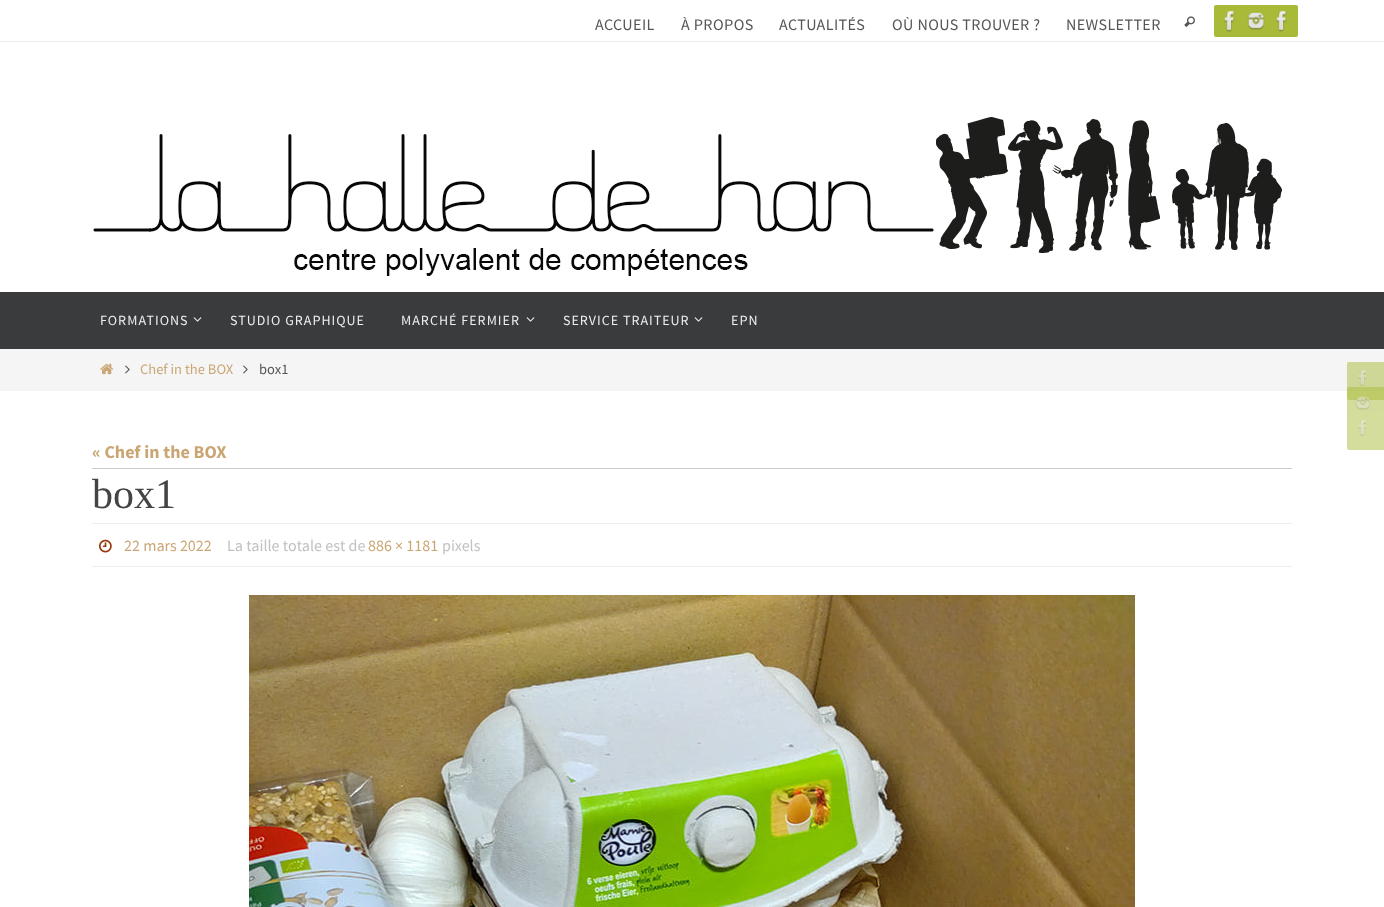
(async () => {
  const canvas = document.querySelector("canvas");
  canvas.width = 1384;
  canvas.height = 907;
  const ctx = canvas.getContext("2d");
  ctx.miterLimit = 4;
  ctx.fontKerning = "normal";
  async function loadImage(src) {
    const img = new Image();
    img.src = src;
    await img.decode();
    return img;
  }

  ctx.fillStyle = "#ffffff";
  ctx.fillRect(0, 0, 1384, 907);
  ctx.fillStyle = "#ebebeb";
  ctx.fillRect(0, 41, 1384, 1);
  ctx.drawImage(await loadImage("img/1.png"), 1184, 16, 11, 12);
  ctx.fillStyle = "#a9ba38";
  ctx.beginPath();
  ctx.roundRect(1214, 5, 32, 32, 2);
  ctx.fill();
  ctx.drawImage(await loadImage("img/2.png"), 1224, 10, 11, 22);
  ctx.beginPath();
  ctx.roundRect(1240, 5, 32, 32, 2);
  ctx.fill();
  ctx.drawImage(await loadImage("img/3.png"), 1247, 12, 18, 18);
  ctx.beginPath();
  ctx.roundRect(1266, 5, 32, 32, 2);
  ctx.fill();
  ctx.drawImage(await loadImage("img/2.png"), 1276, 10, 11, 22);
  ctx.drawImage(await loadImage("img/4.png"), 93, 117, 1189, 159);
  ctx.fillStyle = "#3a3b3d";
  ctx.fillRect(0, 292, 1384, 57);
  ctx.drawImage(await loadImage("img/5.png"), 193, 317, 9, 5);
  ctx.drawImage(await loadImage("img/5.png"), 526, 317, 9, 5);
  ctx.drawImage(await loadImage("img/5.png"), 694, 317, 9, 5);
  ctx.fillStyle = "#f5f5f5";
  ctx.fillRect(0, 349, 1384, 42);
  ctx.drawImage(await loadImage("img/6.png"), 100, 363, 14, 12);
  ctx.drawImage(await loadImage("img/7.png"), 125, 365, 5, 9);
  ctx.drawImage(await loadImage("img/7.png"), 243, 365, 5, 9);
  ctx.fillStyle = "rgba(169, 186, 56, 0.5)";
  ctx.beginPath();
  ctx.roundRect(1347, 362, 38, 38, 2);
  ctx.fill();
  ctx.drawImage(await loadImage("img/8.png"), 1358, 370, 8, 16);
  ctx.beginPath();
  ctx.roundRect(1347, 387, 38, 38, 2);
  ctx.fill();
  ctx.drawImage(await loadImage("img/9.png"), 1356, 396, 14, 14);
  ctx.fillStyle = "#d4dd9c";
  ctx.beginPath();
  ctx.roundRect(1347, 412, 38, 38, 2);
  ctx.fill();
  ctx.drawImage(await loadImage("img/10.png"), 1358, 420, 8, 16);
  for (const [x, y, w, h, color] of [
    [92, 468, 1200, 1, "#cccccc"],
    [92, 523, 1200, 1, "#eeeeee"],
    [92, 566, 1200, 1, "#eeeeee"],
  ]) {
    ctx.fillStyle = color;
    ctx.fillRect(x, y, w, h);
  }
  ctx.drawImage(await loadImage("img/11.png"), 99, 539, 13, 14);
  ctx.drawImage(await loadImage("img/12.png"), 249, 595, 886, 312);
  ctx.letterSpacing = "0.4px";
  ctx.font = "16px Source Sans Pro";
  ctx.fillStyle = "#555555";
  for (const [text, x, y] of [
    ["ACCUEIL", 595, 30],
    ["À PROPOS", 681, 30],
    ["ACTUALITÉS", 779, 30],
    ["OÙ NOUS TROUVER ?", 892, 30],
    ["NEWSLETTER", 1066, 30],
  ]) {
    ctx.fillText(text, x, y);
  }
  ctx.letterSpacing = "1px";
  ctx.font = "14px Source Sans Pro";
  ctx.fillStyle = "#eeeeee";
  for (const [text, x, y] of [
    ["FORMATIONS", 100, 325],
    ["STUDIO GRAPHIQUE", 230, 325],
    ["MARCHÉ FERMIER", 401, 325],
    ["SERVICE TRAITEUR", 563, 325],
    ["EPN", 731, 325],
  ]) {
    ctx.fillText(text, x, y);
  }
  ctx.letterSpacing = "0px";
  ctx.font = "14.5px Source Sans Pro";
  ctx.fillStyle = "#caa674";
  ctx.fillText("Chef in the BOX", 140, 374);
  ctx.fillStyle = "#555555";
  ctx.fillText("box1", 259, 374);
  ctx.font = "bold 18px Source Sans Pro";
  ctx.fillStyle = "#caa674";
  ctx.fillText("« Chef in the BOX", 92, 458);
  ctx.font = "42px Liberation Serif";
  ctx.fillStyle = "#444444";
  ctx.fillText("box1", 92, 508);
  ctx.font = "16px Source Sans Pro";
  ctx.fillStyle = "#caa674";
  ctx.fillText("22 mars 2022", 124, 551);
  ctx.fillStyle = "#c1c1c1";
  ctx.fillText("La taille totale est de", 227, 551);
  ctx.fillStyle = "#caa674";
  ctx.fillText("886 × 1181", 368, 551);
  ctx.fillStyle = "#c1c1c1";
  ctx.fillText("pixels", 442, 551);
})();
